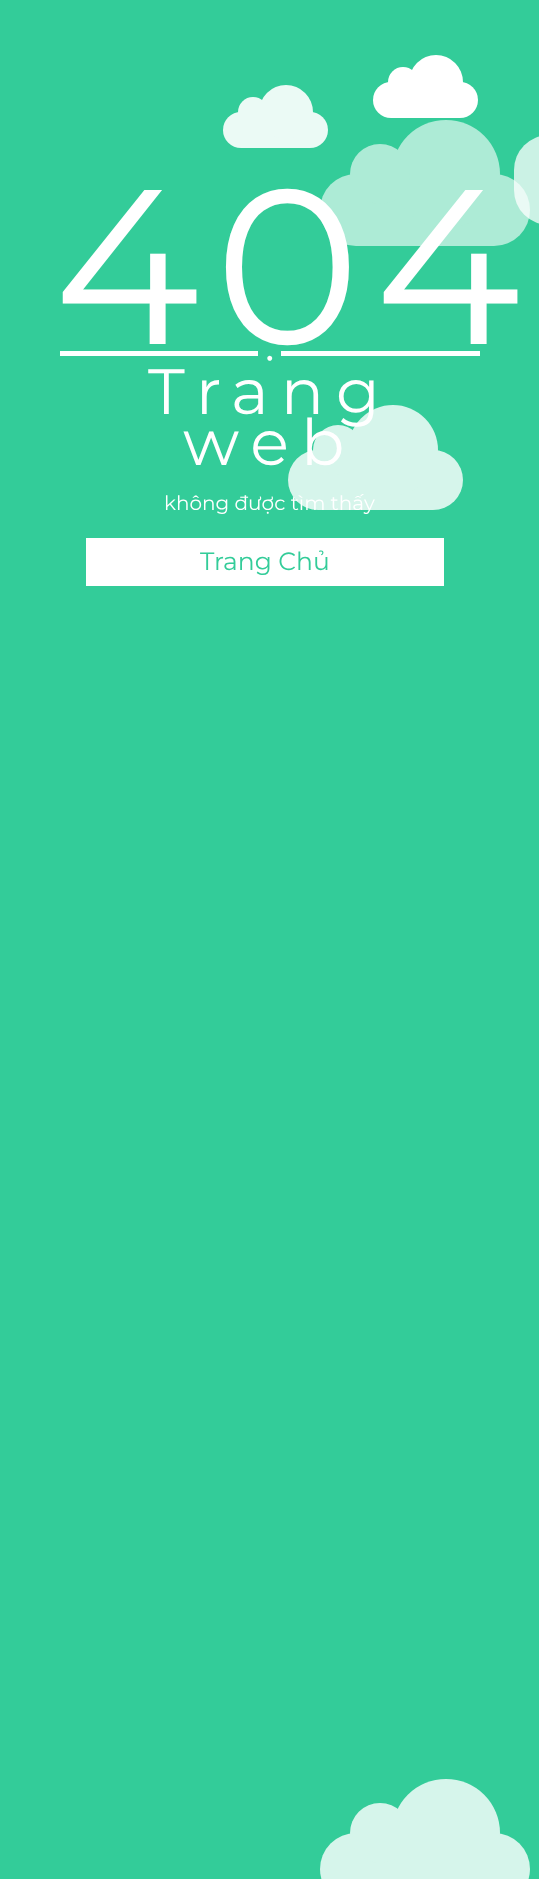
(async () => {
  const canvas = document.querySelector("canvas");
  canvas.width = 539;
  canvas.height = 1879;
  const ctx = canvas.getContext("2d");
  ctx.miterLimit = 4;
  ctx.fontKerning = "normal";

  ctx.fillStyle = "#33cc99";
  ctx.fillRect(0, 0, 539, 1879);
  ctx.fillStyle = "#ebfaf5";
  ctx.beginPath();
  ctx.roundRect(223, 112, 105, 36, 18);
  ctx.fill();
  ctx.beginPath();
  ctx.arc(286, 112, 27, 0, Math.PI * 2);
  ctx.fill();
  ctx.beginPath();
  ctx.arc(253, 112, 15, 0, Math.PI * 2);
  ctx.fill();
  ctx.fillStyle = "#ffffff";
  ctx.beginPath();
  ctx.roundRect(373, 82, 105, 36, 18);
  ctx.fill();
  ctx.beginPath();
  ctx.arc(436, 82, 27, 0, Math.PI * 2);
  ctx.fill();
  ctx.beginPath();
  ctx.arc(403, 82, 15, 0, Math.PI * 2);
  ctx.fill();
  ctx.fillStyle = "#adebd6";
  ctx.beginPath();
  ctx.roundRect(320, 174, 210, 72, 36);
  ctx.fill();
  ctx.beginPath();
  ctx.arc(446, 174, 54, 0, Math.PI * 2);
  ctx.fill();
  ctx.beginPath();
  ctx.arc(380, 174, 30, 0, Math.PI * 2);
  ctx.fill();
  ctx.fillStyle = "rgba(255, 255, 255, 0.75)";
  ctx.beginPath();
  ctx.roundRect(514, 135, 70, 90, 45);
  ctx.fill();
  ctx.fillStyle = "#d6f5eb";
  ctx.beginPath();
  ctx.roundRect(288, 450, 175, 60, 30);
  ctx.fill();
  ctx.beginPath();
  ctx.arc(393, 450, 45, 0, Math.PI * 2);
  ctx.fill();
  ctx.beginPath();
  ctx.arc(338, 450, 25, 0, Math.PI * 2);
  ctx.fill();
  ctx.beginPath();
  ctx.roundRect(320, 1833, 210, 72, 36);
  ctx.fill();
  ctx.beginPath();
  ctx.arc(446, 1833, 54, 0, Math.PI * 2);
  ctx.fill();
  ctx.beginPath();
  ctx.arc(380, 1833, 30, 0, Math.PI * 2);
  ctx.fill();
  for (const [x, y, w, h, color] of [
    [60, 351, 420, 5, "#ffffff"],
    [258, 351, 23, 5, "#33cc99"],
    [86, 538, 358, 48, "#ffffff"],
  ]) {
    ctx.fillStyle = color;
    ctx.fillRect(x, y, w, h);
  }
  ctx.letterSpacing = "15px";
  ctx.font = "220px Montserrat";
  ctx.fillText("404", 54, 344);
  ctx.letterSpacing = "0px";
  ctx.font = "32px Montserrat";
  ctx.fillText("•", 265, 367);
  ctx.letterSpacing = "12px";
  ctx.font = "64px Montserrat";
  ctx.fillText("Trang", 148, 414);
  ctx.fillText("web", 183, 465);
  ctx.letterSpacing = "0px";
  ctx.font = "20px Montserrat";
  ctx.fillText("không được tìm thấy", 164, 510);
  ctx.font = "25px Montserrat";
  ctx.fillStyle = "#33cc99";
  ctx.fillText("Trang Chủ", 200, 570);
})();
